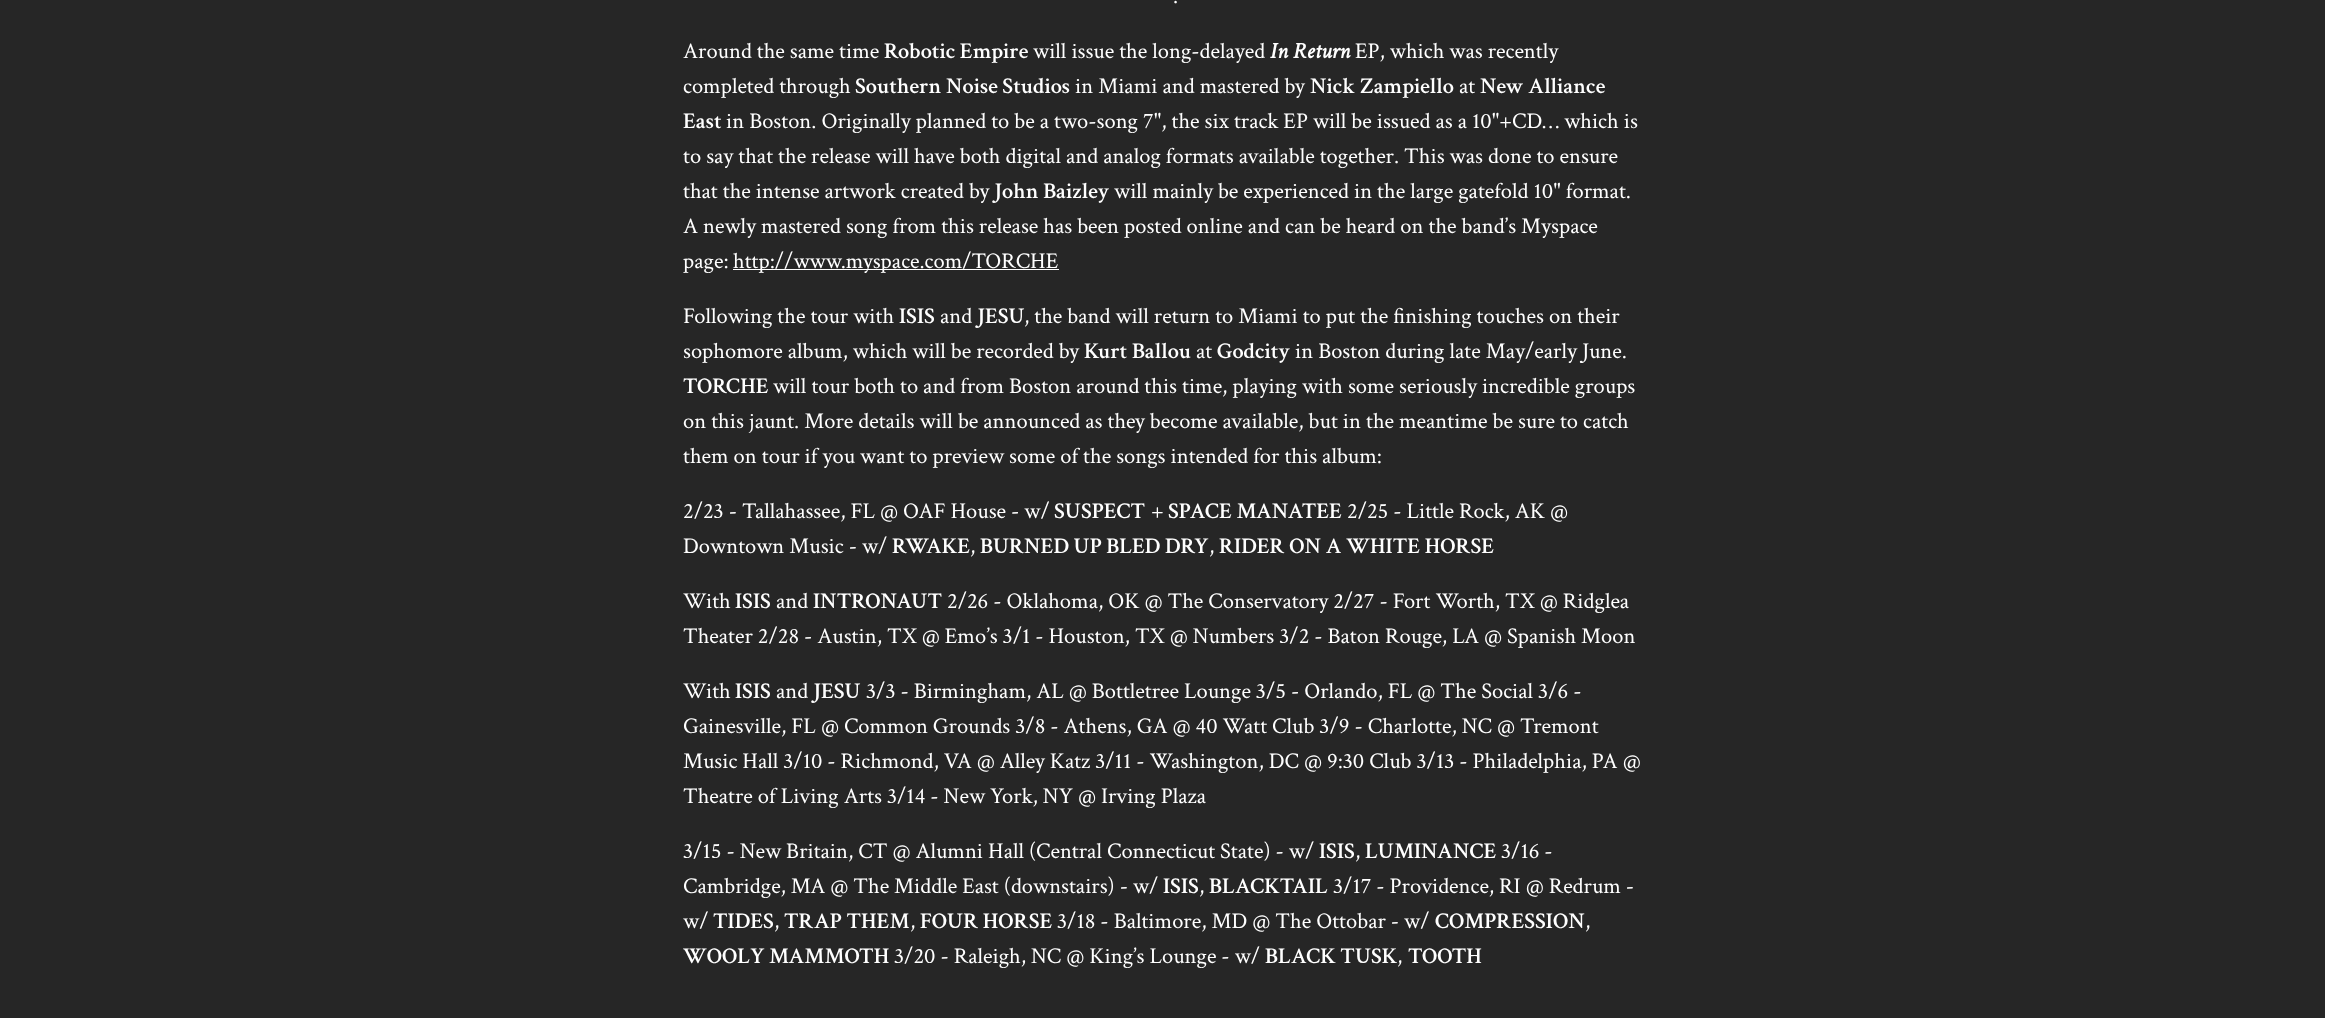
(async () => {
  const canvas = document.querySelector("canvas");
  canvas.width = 2325;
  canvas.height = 1018;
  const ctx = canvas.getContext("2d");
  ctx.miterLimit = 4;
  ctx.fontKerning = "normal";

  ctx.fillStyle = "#262626";
  ctx.fillRect(0, 0, 2325, 1018);
  ctx.fillStyle = "#ffffff";
  ctx.fillRect(733, 269, 326, 1);
  ctx.font = "22.5px Crimson Text";
  ctx.fillText(".", 1173, 3);
  ctx.fillText("Around the same time", 683, 58);
  ctx.font = "600 22.5px Crimson Text";
  ctx.fillText("Robotic Empire", 884, 58);
  ctx.font = "22.5px Crimson Text";
  ctx.fillText("will issue the long-delayed", 1033, 58);
  ctx.font = "italic bold 22.5px Crimson Text";
  ctx.fillText("In Return", 1270, 58);
  ctx.font = "22.5px Crimson Text";
  ctx.fillText("EP, which was recently", 1355, 58);
  ctx.fillText("completed through", 683, 93);
  ctx.font = "600 22.5px Crimson Text";
  ctx.fillText("Southern Noise Studios", 855, 93);
  ctx.font = "22.5px Crimson Text";
  ctx.fillText("in Miami and mastered by", 1075, 93);
  ctx.font = "600 22.5px Crimson Text";
  ctx.fillText("Nick Zampiello", 1310, 93);
  ctx.font = "22.5px Crimson Text";
  ctx.fillText("at", 1459, 93);
  ctx.font = "600 22.5px Crimson Text";
  ctx.fillText("New Alliance", 1480, 93);
  ctx.fillText("East", 683, 128);
  ctx.font = "22.5px Crimson Text";
  for (const [text, x, y] of [
    ["in Boston. Originally planned to be a two-song 7\", the six track EP will be issued as a 10\"+CD… which is", 726, 128],
    ["to say that the release will have both digital and analog formats available together. This was done to ensure", 683, 163],
    ["that the intense artwork created by", 683, 198],
  ]) {
    ctx.fillText(text, x, y);
  }
  ctx.font = "600 22.5px Crimson Text";
  ctx.fillText("John Baizley", 994, 198);
  ctx.font = "22.5px Crimson Text";
  for (const [text, x, y] of [
    ["will mainly be experienced in the large gatefold 10\" format.", 1114, 198],
    ["A newly mastered song from this release has been posted online and can be heard on the band’s Myspace", 683, 233],
    ["page:", 683, 268],
    ["http://www.myspace.com/TORCHE", 733, 268],
    ["Following the tour with", 683, 323],
  ]) {
    ctx.fillText(text, x, y);
  }
  ctx.font = "600 22.5px Crimson Text";
  ctx.fillText("ISIS", 899, 323);
  ctx.font = "22.5px Crimson Text";
  ctx.fillText("and", 940, 323);
  ctx.font = "600 22.5px Crimson Text";
  ctx.fillText("JESU", 977, 323);
  ctx.font = "22.5px Crimson Text";
  ctx.fillText(", the band will return to Miami to put the finishing touches on their", 1024, 323);
  ctx.fillText("sophomore album, which will be recorded by", 683, 358);
  ctx.font = "600 22.5px Crimson Text";
  ctx.fillText("Kurt Ballou", 1084, 358);
  ctx.font = "22.5px Crimson Text";
  ctx.fillText("at", 1196, 358);
  ctx.font = "600 22.5px Crimson Text";
  ctx.fillText("Godcity", 1217, 358);
  ctx.font = "22.5px Crimson Text";
  ctx.fillText("in Boston during late May/early June.", 1295, 358);
  ctx.font = "600 22.5px Crimson Text";
  ctx.fillText("TORCHE", 683, 393);
  ctx.font = "22.5px Crimson Text";
  for (const [text, x, y] of [
    ["will tour both to and from Boston around this time, playing with some seriously incredible groups", 773, 393],
    ["on this jaunt. More details will be announced as they become available, but in the meantime be sure to catch", 683, 428],
    ["them on tour if you want to preview some of the songs intended for this album:", 683, 463],
    ["2/23 - Tallahassee, FL @ OAF House - w/", 683, 518],
  ]) {
    ctx.fillText(text, x, y);
  }
  ctx.font = "600 22.5px Crimson Text";
  ctx.fillText("SUSPECT", 1054, 518);
  ctx.font = "22.5px Crimson Text";
  ctx.fillText("+", 1151, 518);
  ctx.font = "600 22.5px Crimson Text";
  ctx.fillText("SPACE MANATEE", 1168, 518);
  ctx.font = "22.5px Crimson Text";
  ctx.fillText("2/25 - Little Rock, AK @", 1347, 518);
  ctx.fillText("Downtown Music - w/", 683, 553);
  ctx.font = "600 22.5px Crimson Text";
  ctx.fillText("RWAKE", 892, 553);
  ctx.font = "22.5px Crimson Text";
  ctx.fillText(",", 970, 553);
  ctx.font = "600 22.5px Crimson Text";
  ctx.fillText("BURNED UP BLED DRY", 980, 553);
  ctx.font = "22.5px Crimson Text";
  ctx.fillText(",", 1209, 553);
  ctx.font = "600 22.5px Crimson Text";
  ctx.fillText("RIDER ON A WHITE HORSE", 1219, 553);
  ctx.font = "22.5px Crimson Text";
  ctx.fillText("With", 683, 608);
  ctx.font = "600 22.5px Crimson Text";
  ctx.fillText("ISIS", 735, 608);
  ctx.font = "22.5px Crimson Text";
  ctx.fillText("and", 776, 608);
  ctx.font = "600 22.5px Crimson Text";
  ctx.fillText("INTRONAUT", 813, 608);
  ctx.font = "22.5px Crimson Text";
  for (const [text, x, y] of [
    ["2/26 - Oklahoma, OK @ The Conservatory 2/27 - Fort Worth, TX @ Ridglea", 947, 608],
    ["Theater 2/28 - Austin, TX @ Emo’s 3/1 - Houston, TX @ Numbers 3/2 - Baton Rouge, LA @ Spanish Moon", 683, 643],
    ["With", 683, 698],
  ]) {
    ctx.fillText(text, x, y);
  }
  ctx.font = "600 22.5px Crimson Text";
  ctx.fillText("ISIS", 735, 698);
  ctx.font = "22.5px Crimson Text";
  ctx.fillText("and", 776, 698);
  ctx.font = "600 22.5px Crimson Text";
  ctx.fillText("JESU", 813, 698);
  ctx.font = "22.5px Crimson Text";
  for (const [text, x, y] of [
    ["3/3 - Birmingham, AL @ Bottletree Lounge 3/5 - Orlando, FL @ The Social 3/6 -", 866, 698],
    ["Gainesville, FL @ Common Grounds 3/8 - Athens, GA @ 40 Watt Club 3/9 - Charlotte, NC @ Tremont", 683, 733],
    ["Music Hall 3/10 - Richmond, VA @ Alley Katz 3/11 - Washington, DC @ 9:30 Club 3/13 - Philadelphia, PA @", 683, 768],
    ["Theatre of Living Arts 3/14 - New York, NY @ Irving Plaza", 683, 803],
    ["3/15 - New Britain, CT @ Alumni Hall (Central Connecticut State) - w/", 683, 858],
  ]) {
    ctx.fillText(text, x, y);
  }
  ctx.font = "600 22.5px Crimson Text";
  ctx.fillText("ISIS", 1319, 858);
  ctx.font = "22.5px Crimson Text";
  ctx.fillText(",", 1355, 858);
  ctx.font = "600 22.5px Crimson Text";
  ctx.fillText("LUMINANCE", 1365, 858);
  ctx.font = "22.5px Crimson Text";
  ctx.fillText("3/16 -", 1501, 858);
  ctx.fillText("Cambridge, MA @ The Middle East (downstairs) - w/", 683, 893);
  ctx.font = "600 22.5px Crimson Text";
  ctx.fillText("ISIS", 1163, 893);
  ctx.font = "22.5px Crimson Text";
  ctx.fillText(",", 1199, 893);
  ctx.font = "600 22.5px Crimson Text";
  ctx.fillText("BLACKTAIL", 1209, 893);
  ctx.font = "22.5px Crimson Text";
  ctx.fillText("3/17 - Providence, RI @ Redrum -", 1333, 893);
  ctx.fillText("w/", 683, 928);
  ctx.font = "600 22.5px Crimson Text";
  ctx.fillText("TIDES", 713, 928);
  ctx.font = "22.5px Crimson Text";
  ctx.fillText(",", 774, 928);
  ctx.font = "600 22.5px Crimson Text";
  ctx.fillText("TRAP THEM", 784, 928);
  ctx.font = "22.5px Crimson Text";
  ctx.fillText(",", 910, 928);
  ctx.font = "600 22.5px Crimson Text";
  ctx.fillText("FOUR HORSE", 920, 928);
  ctx.font = "22.5px Crimson Text";
  ctx.fillText("3/18 - Baltimore, MD @ The Ottobar - w/", 1057, 928);
  ctx.font = "600 22.5px Crimson Text";
  ctx.fillText("COMPRESSION", 1435, 928);
  ctx.font = "22.5px Crimson Text";
  ctx.fillText(",", 1585, 928);
  ctx.font = "600 22.5px Crimson Text";
  ctx.fillText("WOOLY MAMMOTH", 683, 963);
  ctx.font = "22.5px Crimson Text";
  ctx.fillText("3/20 - Raleigh, NC @ King’s Lounge - w/", 894, 963);
  ctx.font = "600 22.5px Crimson Text";
  ctx.fillText("BLACK TUSK", 1265, 963);
  ctx.font = "22.5px Crimson Text";
  ctx.fillText(",", 1397, 963);
  ctx.font = "600 22.5px Crimson Text";
  ctx.fillText("TOOTH", 1408, 963);
})();
